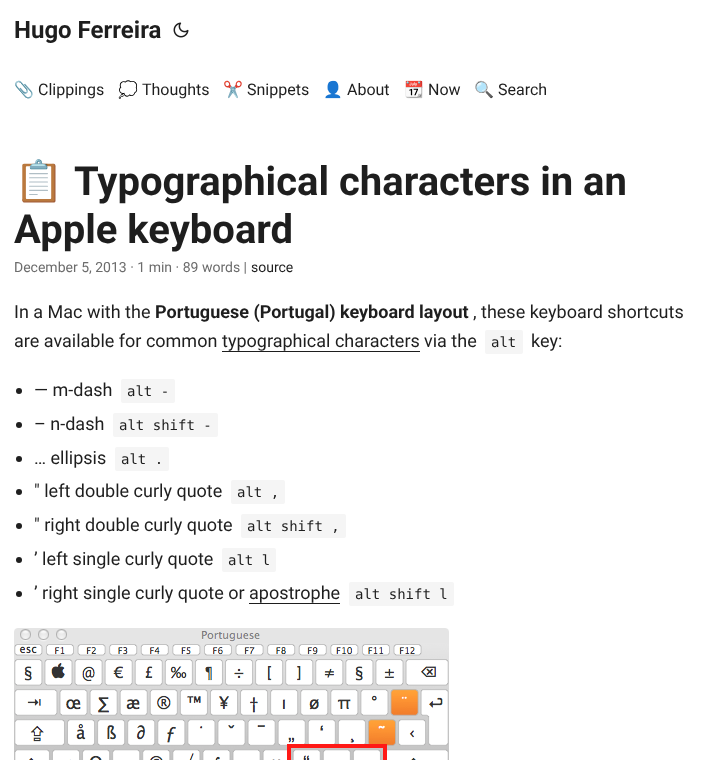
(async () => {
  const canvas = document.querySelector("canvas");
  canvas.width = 714;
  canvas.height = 760;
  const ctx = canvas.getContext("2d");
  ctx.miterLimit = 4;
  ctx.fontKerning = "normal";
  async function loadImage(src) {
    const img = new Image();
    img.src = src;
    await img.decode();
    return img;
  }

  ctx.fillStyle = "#ffffff";
  ctx.fillRect(0, 0, 714, 760);
  ctx.drawImage(await loadImage("img/1.png"), 173, 22, 16, 16);
  ctx.fillStyle = "#1e1e1e";
  ctx.fillRect(222, 351, 198, 1);
  ctx.fillStyle = "#f5f5f5";
  ctx.beginPath();
  ctx.roundRect(485, 330, 38, 24, 2);
  ctx.fill();
  ctx.fillStyle = "#1f1f1f";
  ctx.beginPath();
  ctx.arc(19, 391, 3, 0, Math.PI * 2);
  ctx.fill();
  ctx.fillStyle = "#f5f5f5";
  ctx.beginPath();
  ctx.roundRect(121, 379, 54, 24, 2);
  ctx.fill();
  ctx.fillStyle = "#1f1f1f";
  ctx.beginPath();
  ctx.arc(19, 425, 3, 0, Math.PI * 2);
  ctx.fill();
  ctx.fillStyle = "#f5f5f5";
  ctx.beginPath();
  ctx.roundRect(113, 413, 105, 24, 2);
  ctx.fill();
  ctx.fillStyle = "#1f1f1f";
  ctx.beginPath();
  ctx.arc(19, 459, 3, 0, Math.PI * 2);
  ctx.fill();
  ctx.fillStyle = "#f5f5f5";
  ctx.beginPath();
  ctx.roundRect(115, 447, 54, 24, 2);
  ctx.fill();
  ctx.fillStyle = "#1f1f1f";
  ctx.beginPath();
  ctx.arc(19, 492, 3, 0, Math.PI * 2);
  ctx.fill();
  ctx.fillStyle = "#f5f5f5";
  ctx.beginPath();
  ctx.roundRect(231, 480, 54, 24, 2);
  ctx.fill();
  ctx.fillStyle = "#1f1f1f";
  ctx.beginPath();
  ctx.arc(19, 526, 3, 0, Math.PI * 2);
  ctx.fill();
  ctx.fillStyle = "#f5f5f5";
  ctx.beginPath();
  ctx.roundRect(241, 514, 105, 24, 2);
  ctx.fill();
  ctx.fillStyle = "#1f1f1f";
  ctx.beginPath();
  ctx.arc(19, 560, 3, 0, Math.PI * 2);
  ctx.fill();
  ctx.fillStyle = "#f5f5f5";
  ctx.beginPath();
  ctx.roundRect(222, 548, 54, 24, 2);
  ctx.fill();
  ctx.fillStyle = "#1f1f1f";
  ctx.beginPath();
  ctx.arc(19, 594, 3, 0, Math.PI * 2);
  ctx.fill();
  ctx.fillStyle = "#1e1e1e";
  ctx.fillRect(249, 603, 91, 1);
  ctx.fillStyle = "#f5f5f5";
  ctx.beginPath();
  ctx.roundRect(349, 582, 105, 24, 2);
  ctx.fill();
  ctx.drawImage(await loadImage("img/2.png"), 14, 628, 435, 132);
  ctx.font = "bold 24px Roboto";
  ctx.fillStyle = "#1e1e1e";
  ctx.fillText("Hugo Ferreira", 14, 38);
  ctx.font = "16px Noto Color Emoji";
  ctx.fillText("📎", 14, 95);
  ctx.font = "16px Roboto";
  ctx.fillText("Clippings", 38, 95);
  ctx.font = "16px Noto Color Emoji";
  ctx.fillText("💭", 118, 95);
  ctx.font = "16px Roboto";
  ctx.fillText("Thoughts", 142, 95);
  ctx.font = "16px Noto Color Emoji";
  ctx.fillText("✂️", 223, 95);
  ctx.font = "16px Roboto";
  ctx.fillText("Snippets", 247, 95);
  ctx.font = "16px Noto Color Emoji";
  ctx.fillText("👤", 323, 95);
  ctx.font = "16px Roboto";
  ctx.fillText("About", 347, 95);
  ctx.font = "16px Noto Color Emoji";
  ctx.fillText("📆", 404, 95);
  ctx.font = "16px Roboto";
  ctx.fillText("Now", 428, 95);
  ctx.font = "16px Noto Color Emoji";
  ctx.fillText("🔍", 474, 95);
  ctx.font = "16px Roboto";
  ctx.fillText("Search", 498, 95);
  ctx.font = "bold 40px Noto Color Emoji";
  ctx.fillText("📋", 14, 195);
  ctx.font = "bold 40px Roboto";
  ctx.fillText("Typographical characters in an", 74, 195);
  ctx.fillText("Apple keyboard", 14, 243);
  ctx.font = "14px Roboto";
  ctx.fillStyle = "#6c6c6c";
  ctx.fillText("December 5, 2013 · 1 min · 89 words |", 14, 272);
  ctx.fillStyle = "#1e1e1e";
  ctx.fillText("source", 251, 272);
  ctx.font = "18px Roboto";
  ctx.fillText("In a Mac with the", 14, 318);
  ctx.font = "bold 18px Roboto";
  ctx.fillText("Portuguese (Portugal) keyboard layout", 155, 318);
  ctx.font = "18px Roboto";
  for (const [text, x, y] of [
    [", these keyboard shortcuts", 473, 318],
    ["are available for common", 14, 347],
    ["typographical characters", 222, 347],
    ["via the", 424, 347],
  ]) {
    ctx.fillText(text, x, y);
  }
  ctx.font = "14px DejaVu Sans Mono";
  ctx.fillText("alt", 491, 347);
  ctx.font = "18px Roboto";
  ctx.fillText("key:", 531, 347);
  ctx.fillText("— m-dash", 34, 396);
  ctx.font = "14px DejaVu Sans Mono";
  ctx.fillText("alt -", 127, 396);
  ctx.font = "18px Roboto";
  ctx.fillText("– n-dash", 34, 430);
  ctx.font = "14px DejaVu Sans Mono";
  ctx.fillText("alt shift -", 119, 430);
  ctx.font = "18px Roboto";
  ctx.fillText("… ellipsis", 34, 464);
  ctx.font = "14px DejaVu Sans Mono";
  ctx.fillText("alt .", 121, 464);
  ctx.font = "18px Roboto";
  ctx.fillText("\" left double curly quote", 34, 497);
  ctx.font = "14px DejaVu Sans Mono";
  ctx.fillText("alt ,", 237, 497);
  ctx.font = "18px Roboto";
  ctx.fillText("\" right double curly quote", 34, 531);
  ctx.font = "14px DejaVu Sans Mono";
  ctx.fillText("alt shift ,", 247, 531);
  ctx.font = "18px Roboto";
  ctx.fillText("’ left single curly quote", 34, 565);
  ctx.font = "14px DejaVu Sans Mono";
  ctx.fillText("alt l", 228, 565);
  ctx.font = "18px Roboto";
  ctx.fillText("’ right single curly quote or", 34, 599);
  ctx.fillText("apostrophe", 249, 599);
  ctx.font = "14px DejaVu Sans Mono";
  ctx.fillText("alt shift l", 355, 599);
})();
